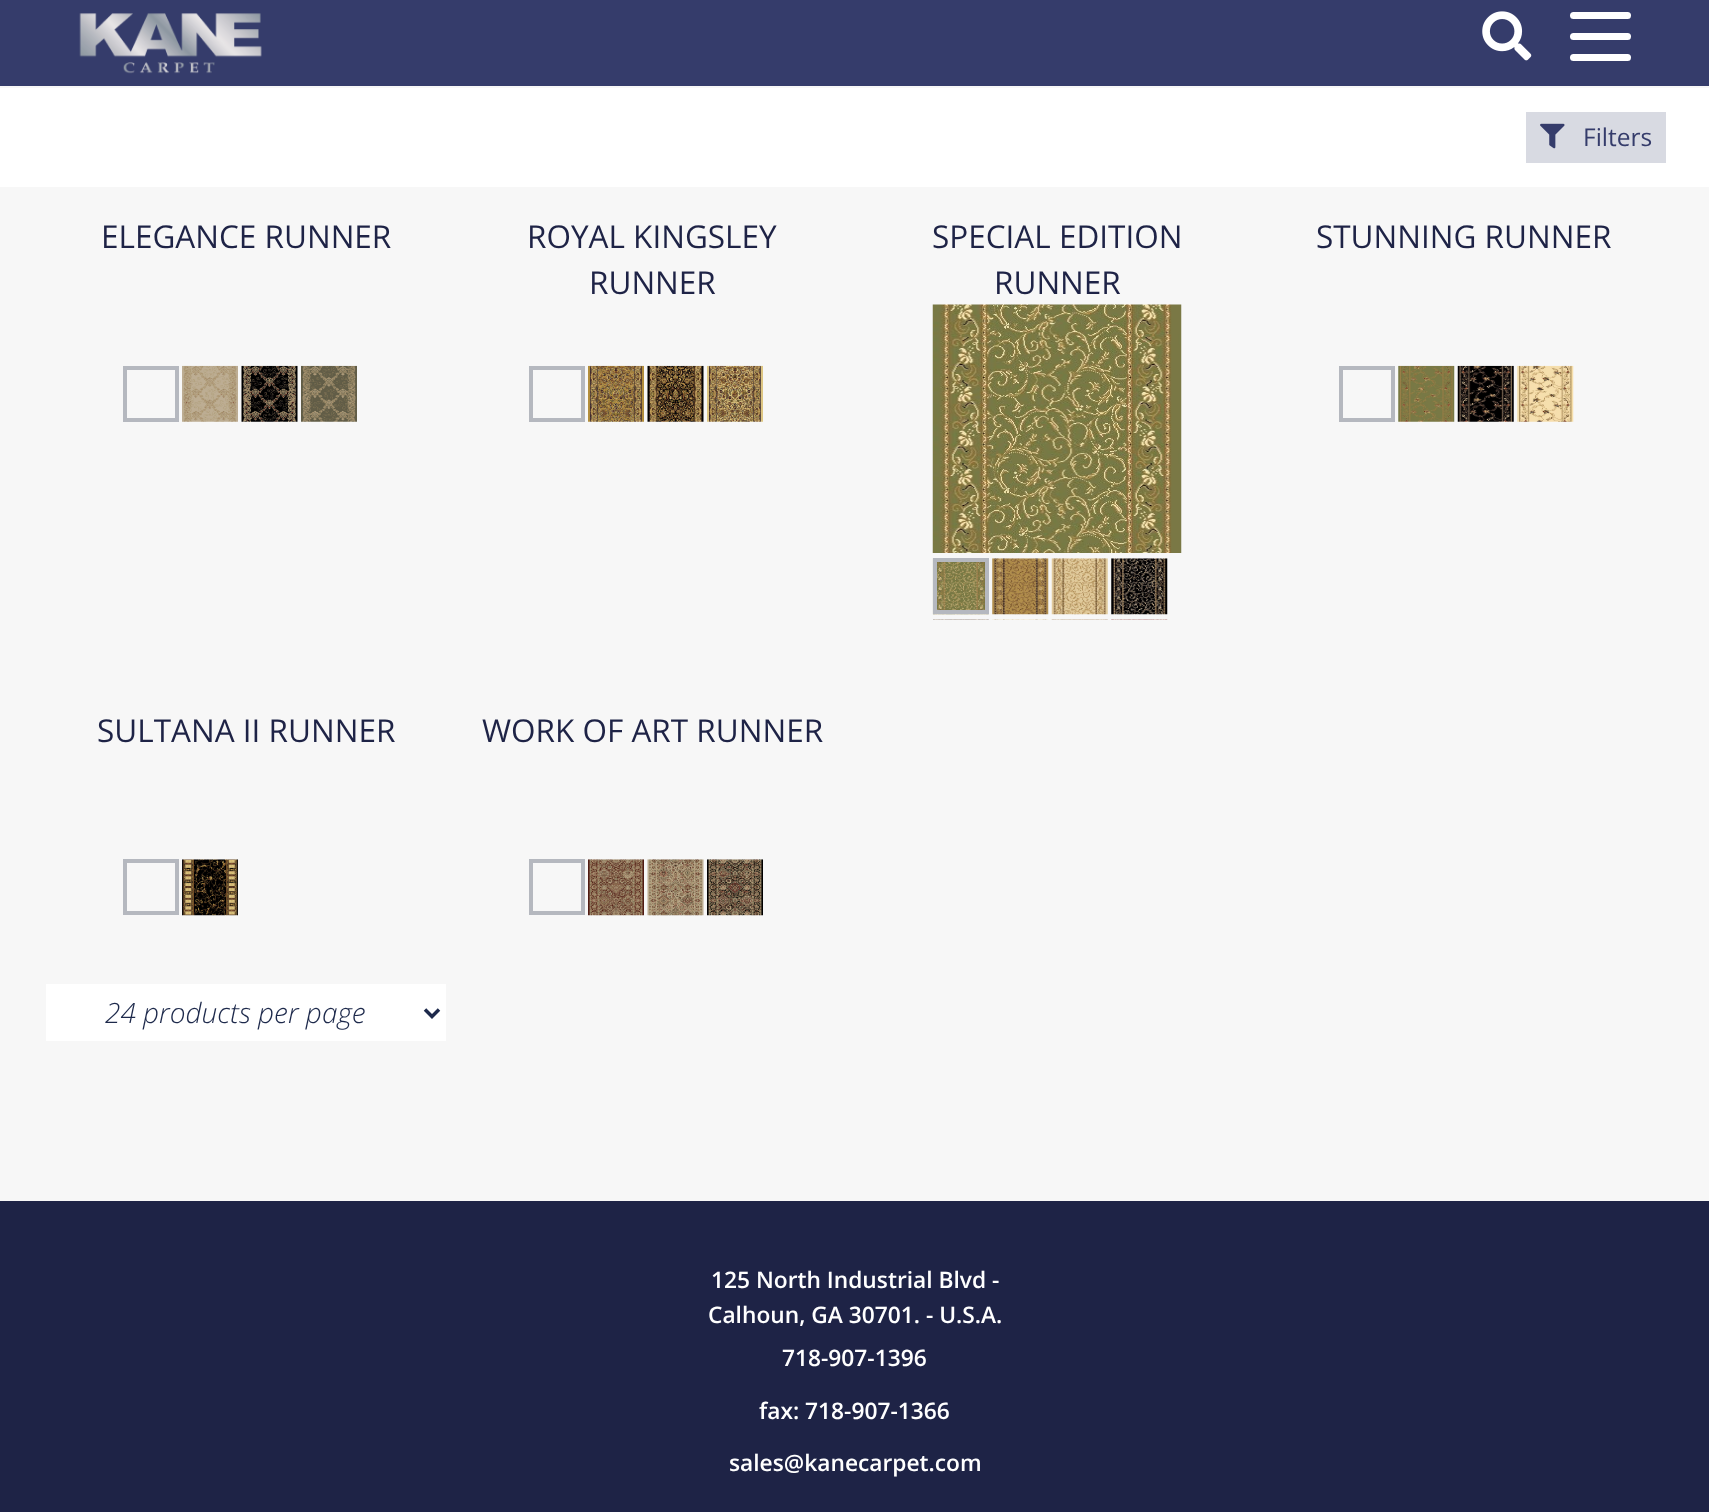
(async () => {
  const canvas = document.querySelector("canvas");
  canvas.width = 1709;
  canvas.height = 1512;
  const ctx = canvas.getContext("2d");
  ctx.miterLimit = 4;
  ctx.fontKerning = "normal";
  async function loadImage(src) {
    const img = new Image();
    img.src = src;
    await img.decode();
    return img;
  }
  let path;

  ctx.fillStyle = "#1e2346";
  ctx.fillRect(0, 0, 1709, 1512);
  ctx.fillStyle = "#353c6b";
  ctx.fillRect(0, 0, 1709, 86);
  ctx.drawImage(await loadImage("img/1.png"), 79, 13, 183, 61);
  ctx.drawImage(await loadImage("img/2.png"), 1482, 11, 50, 50);
  ctx.fillStyle = "#ffffff";
  ctx.beginPath();
  ctx.roundRect(1570, 12, 61, 7, 3.5);
  ctx.fill();
  ctx.beginPath();
  ctx.roundRect(1570, 33, 61, 7, 3.5);
  ctx.fill();
  ctx.beginPath();
  ctx.roundRect(1570, 54, 61, 7, 3.5);
  ctx.fill();
  for (const [x, y, w, h, color] of [
    [0, 86, 1709, 1115, "#f7f7f7"],
    [0, 88, 1709, 99, "#ffffff"],
    [1526, 112, 140, 51, "#d8dae2"],
  ]) {
    ctx.fillStyle = color;
    ctx.fillRect(x, y, w, h);
  }
  ctx.drawImage(await loadImage("img/3.png"), 1540, 123, 25, 26);
  ctx.strokeStyle = "#b5b8bf";
  ctx.lineWidth = 4;
  ctx.strokeRect(125, 368, 52, 52);
  ctx.drawImage(await loadImage("img/4.png"), 182, 365, 56, 57);
  ctx.drawImage(await loadImage("img/5.png"), 241, 365, 57, 57);
  ctx.drawImage(await loadImage("img/6.png"), 301, 365, 56, 57);
  ctx.strokeRect(531, 368, 52, 52);
  ctx.drawImage(await loadImage("img/7.png"), 588, 365, 56, 57);
  ctx.drawImage(await loadImage("img/8.png"), 647, 365, 57, 57);
  ctx.drawImage(await loadImage("img/9.png"), 707, 365, 56, 57);
  ctx.drawImage(await loadImage("img/10.png"), 932, 304, 250, 249);
  ctx.drawImage(await loadImage("img/11.png"), 932, 558, 57, 57);
  ctx.strokeRect(935, 560, 52, 52);
  ctx.drawImage(await loadImage("img/12.png"), 992, 558, 57, 57);
  ctx.drawImage(await loadImage("img/13.png"), 1051, 558, 57, 57);
  ctx.drawImage(await loadImage("img/14.png"), 1111, 558, 57, 57);
  ctx.drawImage(await loadImage("img/15.png"), 933, 619, 56, 1);
  ctx.drawImage(await loadImage("img/16.png"), 992, 619, 57, 1);
  ctx.drawImage(await loadImage("img/17.png"), 1051, 619, 57, 1);
  ctx.drawImage(await loadImage("img/18.png"), 1111, 619, 57, 1);
  ctx.strokeRect(1341, 368, 52, 52);
  ctx.drawImage(await loadImage("img/19.png"), 1398, 365, 57, 57);
  ctx.drawImage(await loadImage("img/20.png"), 1457, 365, 57, 57);
  ctx.drawImage(await loadImage("img/21.png"), 1517, 365, 57, 57);
  ctx.strokeRect(125, 861, 52, 52);
  ctx.drawImage(await loadImage("img/22.png"), 182, 859, 56, 57);
  ctx.strokeRect(531, 861, 52, 52);
  ctx.drawImage(await loadImage("img/23.png"), 588, 859, 56, 57);
  ctx.drawImage(await loadImage("img/24.png"), 647, 859, 57, 57);
  ctx.drawImage(await loadImage("img/25.png"), 707, 859, 56, 57);
  ctx.fillStyle = "#ffffff";
  ctx.fillRect(46, 984, 400, 57);
  path = new Path2D("M425 1009.5L432 1016.5L439 1009.5");
  ctx.strokeStyle = "#1d294b";
  ctx.lineWidth = 3.5;
  ctx.stroke(path);
  ctx.font = "24.5px Open Sans";
  ctx.fillStyle = "#353c6b";
  ctx.fillText("Filters", 1583, 146);
  ctx.font = "31.5px Open Sans";
  ctx.fillStyle = "#1e2346";
  for (const [text, x, y] of [
    ["ELEGANCE RUNNER", 101, 248],
    ["ROYAL KINGSLEY", 527, 248],
    ["RUNNER", 589, 294],
    ["SPECIAL EDITION", 932, 248],
    ["RUNNER", 994, 294],
    ["STUNNING RUNNER", 1316, 248],
    ["SULTANA II RUNNER", 97, 742],
    ["WORK OF ART RUNNER", 482, 742],
  ]) {
    ctx.fillText(text, x, y);
  }
  ctx.font = "italic 300 28px Open Sans";
  ctx.fillStyle = "#1d294b";
  ctx.fillText("24 products per page", 105, 1023);
  ctx.font = "600 22.75px Open Sans";
  ctx.fillStyle = "#ffffff";
  for (const [text, x, y] of [
    ["125 North Industrial Blvd -", 711, 1288],
    ["Calhoun, GA 30701. - U.S.A.", 708, 1323],
    ["718-907-1396", 782, 1366],
    ["fax: 718-907-1366", 759, 1419],
    ["sales@kanecarpet.com", 729, 1471],
  ]) {
    ctx.fillText(text, x, y);
  }
})();
